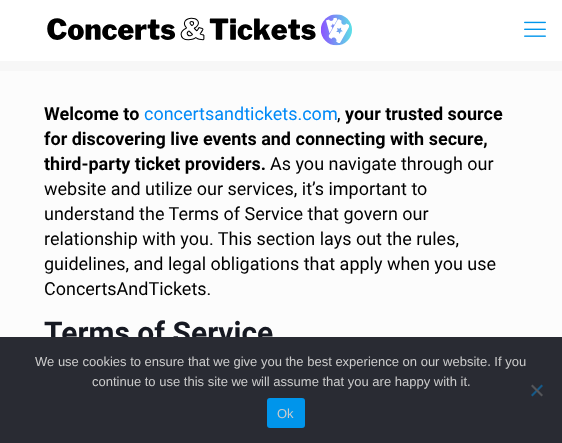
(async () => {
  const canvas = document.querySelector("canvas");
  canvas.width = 562;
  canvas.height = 443;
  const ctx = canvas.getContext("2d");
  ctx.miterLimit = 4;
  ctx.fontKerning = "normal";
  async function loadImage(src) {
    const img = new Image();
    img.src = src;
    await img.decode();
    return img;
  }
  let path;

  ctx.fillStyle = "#fcfcfc";
  ctx.fillRect(0, 0, 562, 443);
  ctx.fillStyle = "#ffffff";
  ctx.fillRect(0, 0, 562, 61);
  ctx.drawImage(await loadImage("img/1.png"), 47, 14, 305, 32);
  ctx.drawImage(await loadImage("img/2.png"), 524, 21, 22, 16);
  ctx.fillStyle = "#f7f7f7";
  ctx.fillRect(0, 61, 562, 10);
  ctx.font = "bold 18px Roboto";
  ctx.fillStyle = "#000000";
  ctx.fillText("Welcome to", 44, 120);
  ctx.font = "18px Roboto";
  ctx.fillStyle = "#0089f7";
  ctx.fillText("concertsandtickets.com", 144, 120);
  ctx.fillStyle = "#000000";
  ctx.fillText(",", 337, 120);
  ctx.font = "bold 18px Roboto";
  for (const [text, x, y] of [
    ["your trusted source", 345, 120],
    ["for discovering live events and connecting with secure,", 44, 145],
    ["third-party ticket providers.", 44, 170],
  ]) {
    ctx.fillText(text, x, y);
  }
  ctx.font = "18px Roboto";
  for (const [text, x, y] of [
    ["As you navigate through our", 270, 170],
    ["website and utilize our services, it’s important to", 44, 195],
    ["understand the Terms of Service that govern our", 44, 220],
    ["relationship with you. This section lays out the rules,", 44, 245],
    ["guidelines, and legal obligations that apply when you use", 44, 270],
    ["ConcertsAndTickets.", 44, 295],
  ]) {
    ctx.fillText(text, x, y);
  }
  ctx.font = "bold 30px Roboto";
  ctx.fillStyle = "#161922";
  ctx.fillText("Terms of Service", 44, 343);
  ctx.fillStyle = "#292b33";
  ctx.fillRect(0, 337, 562, 106);
  ctx.font = "13px Liberation Sans";
  ctx.fillStyle = "#cccccc";
  ctx.fillText("We use cookies to ensure that we give you the best experience on our website. If you", 35, 366);
  ctx.fillText("continue to use this site we will assume that you are happy with it.", 92, 386);
  ctx.fillStyle = "#155a89";
  path = new Path2D("M541.5 384.5L543 386L532.5 396.5L531 395Z");
  ctx.fill(path);
  ctx.fillStyle = "#55565a";
  path = new Path2D("M531 386L532.5 384.5L543 395L541.5 396.5Z");
  ctx.fill(path);
  ctx.fillStyle = "#0095eb";
  ctx.beginPath();
  ctx.roundRect(267, 398, 38, 30, 3);
  ctx.fill();
  ctx.fillStyle = "#cccccc";
  ctx.fillText("Ok", 277, 418);
})();
